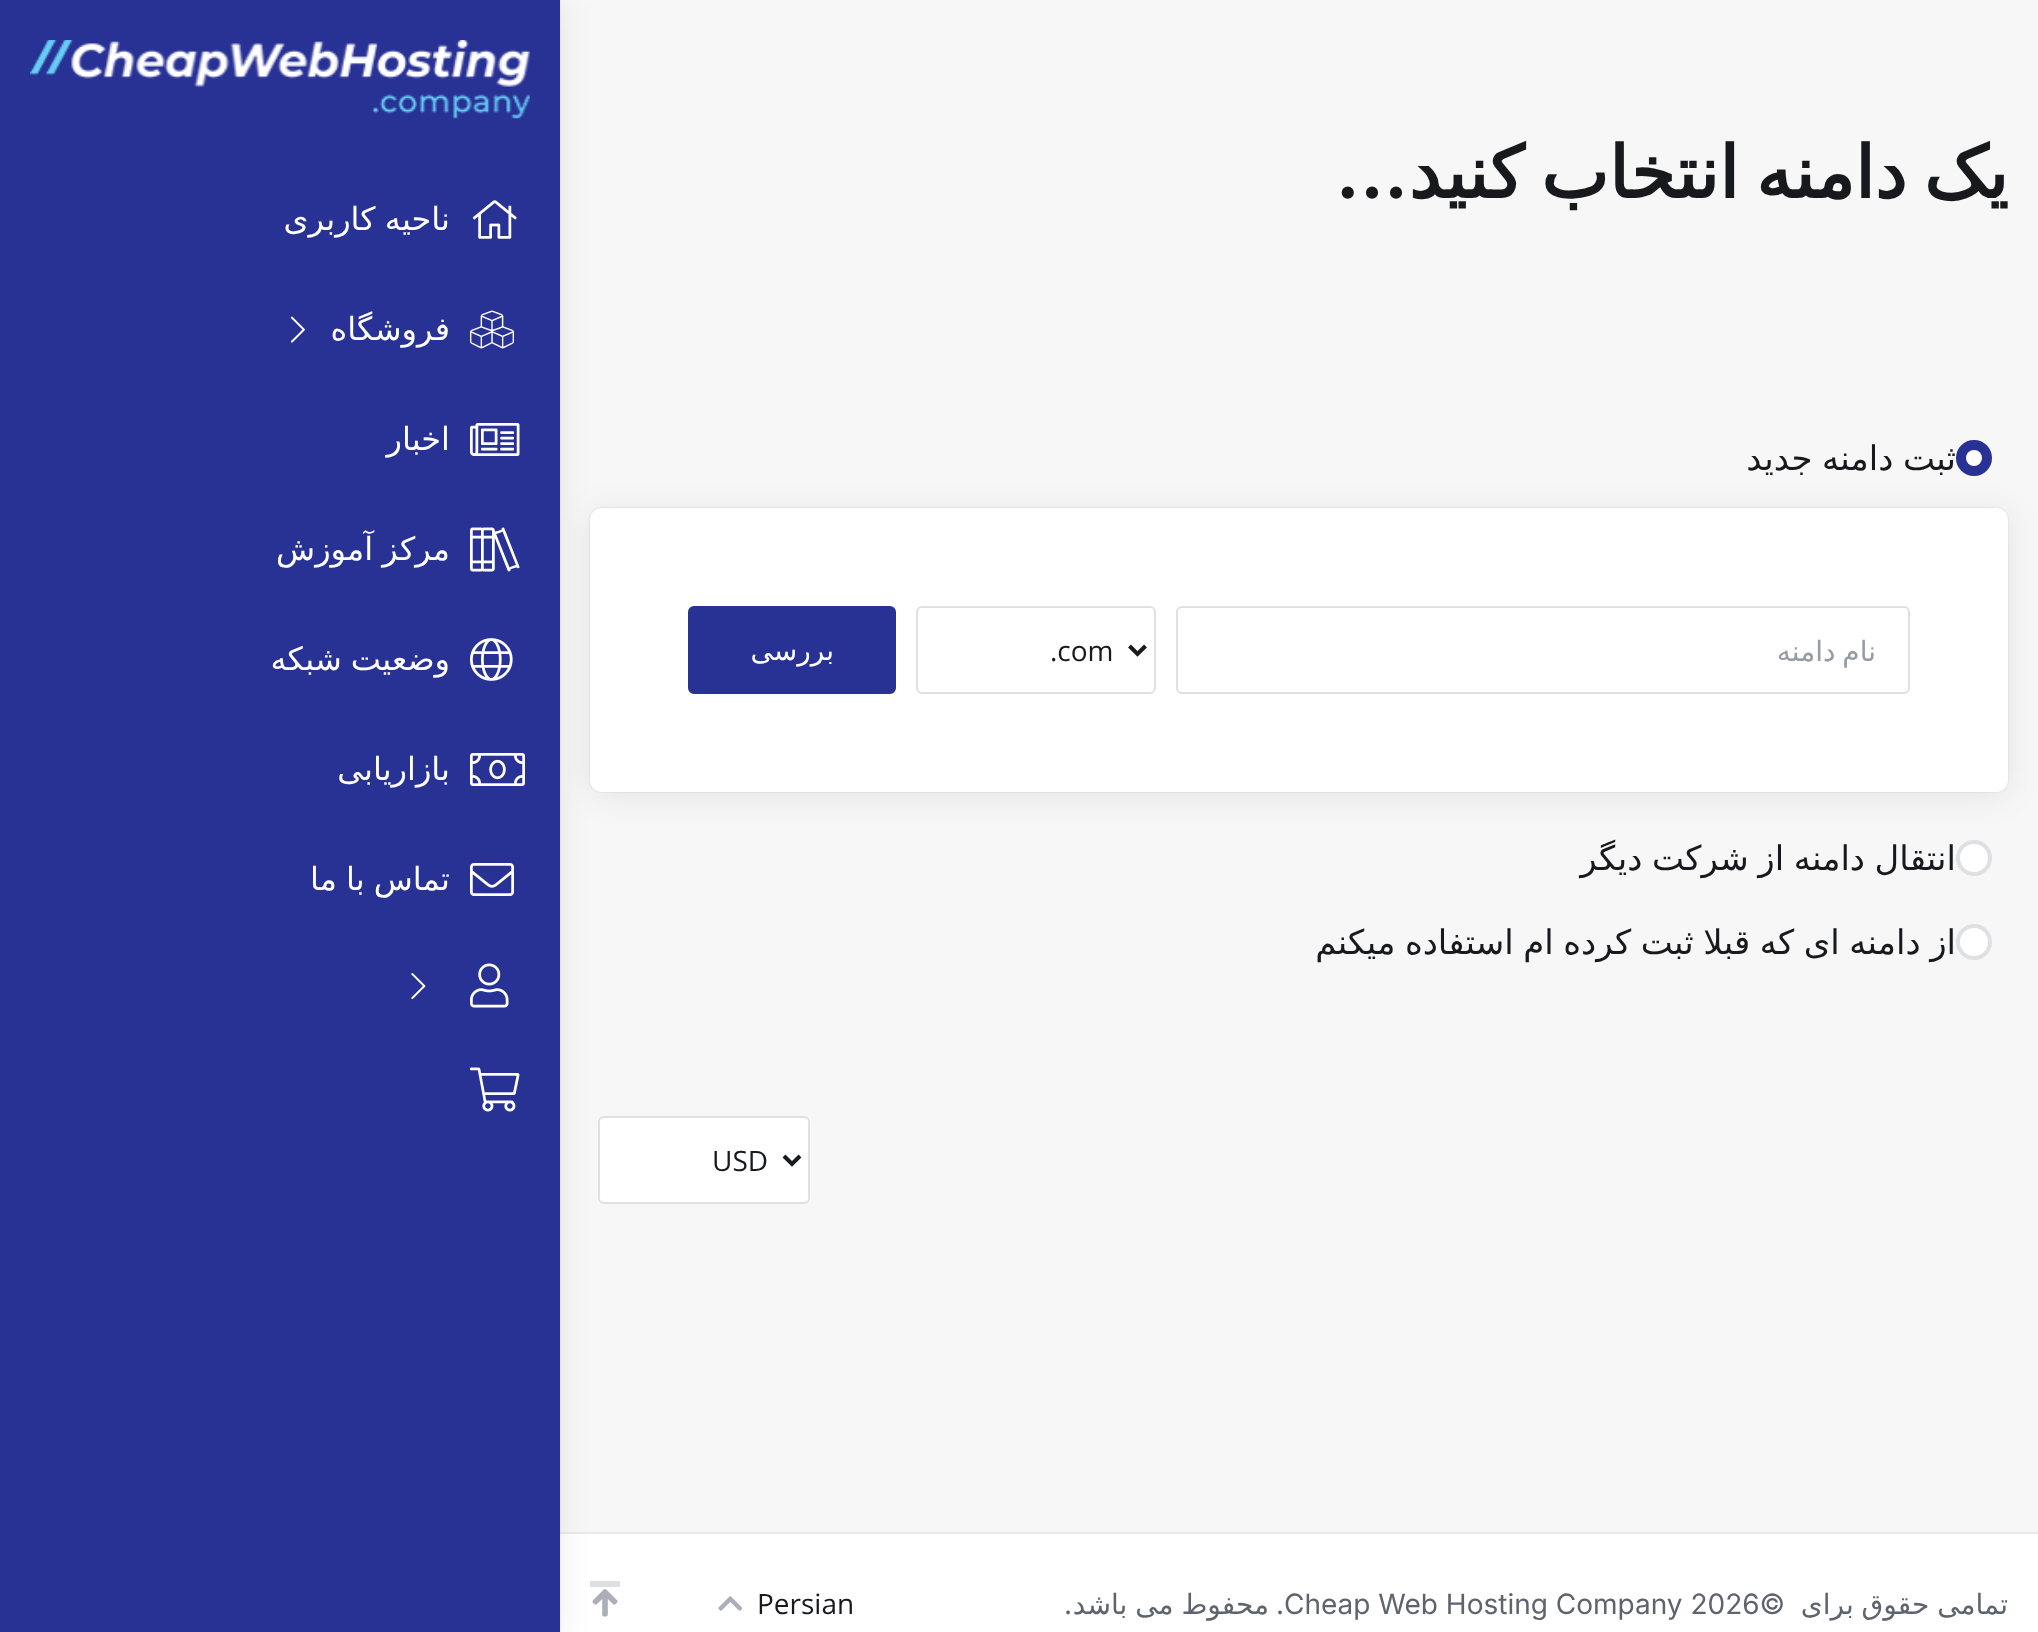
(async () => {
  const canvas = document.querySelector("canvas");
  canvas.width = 2038;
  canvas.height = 1632;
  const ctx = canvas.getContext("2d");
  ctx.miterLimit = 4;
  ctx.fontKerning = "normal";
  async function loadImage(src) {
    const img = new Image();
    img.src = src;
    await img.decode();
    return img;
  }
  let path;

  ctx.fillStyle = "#f7f7f8";
  ctx.fillRect(0, 0, 2038, 1632);
  ctx.fillStyle = "rgba(0, 0, 0, 0.08)";
  ctx.filter = "blur(16px)";
  ctx.beginPath();
  ctx.roundRect(590, 512, 1418, 284, 12);
  ctx.fill();
  ctx.filter = "none";
  ctx.fillStyle = "rgba(0, 0, 0, 0.1)";
  ctx.filter = "blur(1px)";
  ctx.beginPath();
  ctx.roundRect(590, 508, 1418, 284, 12);
  ctx.fill();
  ctx.filter = "none";
  ctx.fillStyle = "#ffffff";
  ctx.beginPath();
  ctx.roundRect(590, 508, 1418, 284, 12);
  ctx.fill();
  ctx.beginPath();
  ctx.roundRect(1177, 607, 732, 86, 5);
  ctx.strokeStyle = "#dee0e3";
  ctx.lineWidth = 2;
  ctx.stroke();
  ctx.beginPath();
  ctx.roundRect(917, 607, 238, 86, 5);
  ctx.stroke();
  path = new Path2D("M1129.5 646L1137.5 654L1145.5 646");
  ctx.strokeStyle = "#17191c";
  ctx.lineWidth = 4;
  ctx.stroke(path);
  ctx.fillStyle = "#283194";
  ctx.beginPath();
  ctx.roundRect(689, 607, 206, 86, 5);
  ctx.fill();
  ctx.strokeStyle = "#283194";
  ctx.lineWidth = 2;
  ctx.stroke();
  ctx.fillStyle = "#ffffff";
  ctx.beginPath();
  ctx.roundRect(599, 1117, 210, 86, 5);
  ctx.fill();
  ctx.strokeStyle = "#dee0e3";
  ctx.stroke();
  path = new Path2D("M784 1156L792 1164L800 1156");
  ctx.strokeStyle = "#17191c";
  ctx.lineWidth = 4;
  ctx.stroke(path);
  ctx.fillRect(560, 1534, 1478, 98);
  ctx.fillStyle = "#e9eaec";
  ctx.fillRect(560, 1532, 1478, 2);
  ctx.drawImage(await loadImage("img/1.png"), 718, 1596, 25, 15);
  ctx.fillStyle = "#dedfe3";
  ctx.fillRect(590, 1581, 30, 6);
  ctx.drawImage(await loadImage("img/2.png"), 592, 1589, 26, 28);
  ctx.fillStyle = "rgba(0, 0, 0, 0.08)";
  ctx.filter = "blur(16px)";
  ctx.beginPath();
  ctx.rect(0, 4, 560, 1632);
  ctx.fill();
  ctx.filter = "none";
  ctx.fillStyle = "rgba(0, 0, 0, 0.1)";
  ctx.filter = "blur(1px)";
  ctx.beginPath();
  ctx.rect(0, 0, 560, 1632);
  ctx.fill();
  ctx.filter = "none";
  ctx.fillStyle = "#283194";
  ctx.fillRect(0, 0, 560, 1632);
  ctx.drawImage(await loadImage("img/3.png"), 30, 40, 500, 79);
  ctx.drawImage(await loadImage("img/4.png"), 472, 200, 45, 39);
  ctx.drawImage(await loadImage("img/5.png"), 470, 310, 44, 39);
  ctx.drawImage(await loadImage("img/6.png"), 290, 316, 15, 27);
  ctx.drawImage(await loadImage("img/7.png"), 470, 423, 50, 33);
  ctx.drawImage(await loadImage("img/8.png"), 470, 527, 50, 45);
  ctx.drawImage(await loadImage("img/9.png"), 470, 638, 43, 43);
  ctx.drawImage(await loadImage("img/10.png"), 470, 753, 55, 33);
  ctx.drawImage(await loadImage("img/11.png"), 470, 863, 44, 33);
  ctx.drawImage(await loadImage("img/12.png"), 470, 963, 39, 45);
  ctx.drawImage(await loadImage("img/13.png"), 411, 972, 15, 28);
  ctx.drawImage(await loadImage("img/14.png"), 470, 1067, 50, 45);
  ctx.wordSpacing = "-6px";
  ctx.direction = "rtl";
  ctx.font = "bold 72px DejaVu Sans";
  ctx.fillStyle = "#17191c";
  ctx.fillText("یک دامنه انتخاب کنید", 2008, 198);
  ctx.wordSpacing = "0px";
  ctx.font = "bold 72px Inter";
  ctx.fillText("...", 1408, 198);
  ctx.wordSpacing = "-1.25px";
  ctx.font = "34px DejaVu Sans";
  ctx.fillText("ثبت دامنه جدید", 1956, 470);
  ctx.fillStyle = "#283194";
  ctx.beginPath();
  ctx.arc(1974, 458, 16, 0, Math.PI * 2);
  ctx.fill();
  ctx.strokeStyle = "#283194";
  ctx.stroke();
  ctx.fillStyle = "#ffffff";
  ctx.beginPath();
  ctx.arc(1974, 458, 8, 0, Math.PI * 2);
  ctx.fill();
  ctx.wordSpacing = "-2px";
  ctx.font = "28px DejaVu Sans";
  ctx.fillStyle = "#979ba4";
  ctx.fillText("نام دامنه", 1876, 661);
  ctx.wordSpacing = "0px";
  ctx.direction = "ltr";
  ctx.font = "28px Open Sans";
  ctx.fillStyle = "#17191c";
  ctx.fillText(".com", 1050, 661);
  ctx.direction = "rtl";
  ctx.font = "28px DejaVu Sans";
  ctx.fillStyle = "#ffffff";
  ctx.fillText("بررسی", 834, 660);
  ctx.wordSpacing = "-1.25px";
  ctx.font = "34px DejaVu Sans";
  ctx.fillStyle = "#17191c";
  ctx.fillText("انتقال دامنه از شرکت دیگر", 1956, 870);
  ctx.fillStyle = "#ffffff";
  ctx.beginPath();
  ctx.arc(1974, 858, 16, 0, Math.PI * 2);
  ctx.fill();
  ctx.strokeStyle = "#dee0e3";
  ctx.stroke();
  ctx.fillStyle = "#17191c";
  ctx.fillText("از دامنه ای که قبلا ثبت کرده ام استفاده میکنم", 1956, 954);
  ctx.fillStyle = "#ffffff";
  ctx.beginPath();
  ctx.arc(1974, 942, 16, 0, Math.PI * 2);
  ctx.fill();
  ctx.stroke();
  ctx.wordSpacing = "0px";
  ctx.direction = "ltr";
  ctx.font = "28px Open Sans";
  ctx.fillStyle = "#17191c";
  ctx.fillText("USD", 712, 1171);
  ctx.wordSpacing = "-1px";
  ctx.direction = "rtl";
  ctx.font = "28px DejaVu Sans";
  ctx.fillStyle = "#5e636e";
  ctx.fillText("تمامی حقوق برای", 2008, 1614);
  ctx.wordSpacing = "0px";
  ctx.direction = "ltr";
  ctx.font = "28px Inter";
  ctx.fillText("Cheap Web Hosting Company 2026©", 1284, 1614);
  ctx.direction = "rtl";
  ctx.fillText(".", 1284, 1614);
  ctx.wordSpacing = "-1px";
  ctx.font = "28px DejaVu Sans";
  ctx.fillText("محفوط می باشد", 1269, 1614);
  ctx.wordSpacing = "0px";
  ctx.font = "28px Inter";
  ctx.fillText(".", 1072, 1614);
  ctx.direction = "ltr";
  ctx.font = "28px Open Sans";
  ctx.fillStyle = "#17191c";
  ctx.fillText("Persian", 757, 1614);
  ctx.wordSpacing = "-1px";
  ctx.direction = "rtl";
  ctx.font = "32px DejaVu Sans";
  ctx.fillStyle = "#ffffff";
  ctx.fillText("ناحیه کاربری", 450, 230);
  ctx.wordSpacing = "0px";
  ctx.fillText("فروشگاه", 450, 340);
  ctx.fillText("اخبار", 450, 450);
  ctx.wordSpacing = "-1px";
  ctx.fillText("مرکز آموزش", 450, 560);
  ctx.fillText("وضعیت شبکه", 450, 670);
  ctx.wordSpacing = "0px";
  ctx.fillText("بازاریابی", 450, 780);
  ctx.wordSpacing = "-1px";
  ctx.fillText("تماس با ما", 450, 890);
})();
